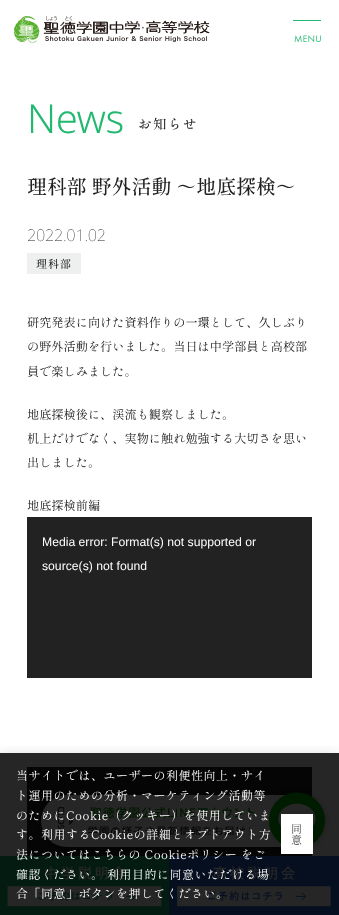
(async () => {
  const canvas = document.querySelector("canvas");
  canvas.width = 339;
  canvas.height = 915;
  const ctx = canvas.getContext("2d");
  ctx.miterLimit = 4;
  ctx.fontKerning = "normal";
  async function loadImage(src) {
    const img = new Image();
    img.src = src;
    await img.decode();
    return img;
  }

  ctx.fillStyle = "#ffffff";
  ctx.fillRect(0, 0, 339, 915);
  ctx.drawImage(await loadImage("img/1.png"), 14, 16, 196, 27);
  ctx.fillStyle = "#21b86f";
  ctx.fillRect(293, 20, 28, 1);
  ctx.drawImage(await loadImage("img/2.png"), 294, 35, 27, 7);
  for (const [x, y, w, h, color] of [
    [27, 253, 54, 21, "#edf0ef"],
    [27, 517, 285, 161, "#222222"],
    [27, 767, 285, 89, "#222222"],
    [0, 856, 339, 59, "#2668d8"],
  ]) {
    ctx.fillStyle = color;
    ctx.fillRect(x, y, w, h);
  }
  ctx.drawImage(await loadImage("img/7.png"), 0, 856, 169, 59);
  ctx.fillStyle = "rgba(0, 0, 0, 0.2)";
  ctx.filter = "blur(4.5px)";
  ctx.beginPath();
  ctx.roundRect(41, 795, 284, 52, 26);
  ctx.fill();
  ctx.filter = "none";
  ctx.fillStyle = "#ffffff";
  ctx.beginPath();
  ctx.roundRect(41, 795, 284, 52, 26);
  ctx.fill();
  ctx.drawImage(await loadImage("img/4.png"), 90, 807, 165, 11);
  ctx.fillStyle = "rgba(0, 0, 0, 0.1)";
  ctx.filter = "blur(4.5px)";
  ctx.beginPath();
  ctx.roundRect(269, 793, 56, 57, 28);
  ctx.fill();
  ctx.filter = "none";
  ctx.drawImage(await loadImage("img/3.png"), 269, 792, 56, 52);
  ctx.drawImage(await loadImage("img/5.png"), 88, 826, 162, 9);
  ctx.drawImage(await loadImage("img/6.png"), 58, 807, 15, 28);
  ctx.drawImage(await loadImage("img/8.png"), 177, 866, 154, 41);
  ctx.save();
  ctx.beginPath();
  ctx.rect(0, 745, 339, 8);
  ctx.clip();
  ctx.fillStyle = "rgba(172, 171, 171, 0.3)";
  ctx.filter = "blur(5px)";
  ctx.beginPath();
  ctx.rect(0, 752, 339, 162);
  ctx.fill();
  ctx.filter = "none";
  ctx.restore();
  ctx.fillStyle = "rgba(0, 0, 0, 0.85)";
  ctx.fillRect(0, 753, 339, 162);
  ctx.fillStyle = "#ffffff";
  ctx.fillRect(281, 814, 32, 40);
  ctx.letterSpacing = "-0.5px";
  ctx.font = "300 40px Noto Sans";
  ctx.fillStyle = "#21b86f";
  ctx.fillText("News", 27, 133);
  ctx.letterSpacing = "1.5px";
  ctx.font = "500 13.5px 'Shippori Mincho B1'";
  ctx.fillStyle = "#222222";
  ctx.fillText("お知らせ", 138, 129);
  ctx.letterSpacing = "0px";
  ctx.font = "500 19.9px 'Shippori Mincho B1'";
  ctx.fillText("理科部 野外活動 ～地底探検～", 27, 194);
  ctx.letterSpacing = "-0.25px";
  ctx.font = "100 16.25px Noto Sans";
  ctx.fillText("2022.01.02", 27, 241);
  ctx.letterSpacing = "1px";
  ctx.font = "500 11px 'Shippori Mincho B1'";
  ctx.fillText("理科部", 36, 268);
  ctx.letterSpacing = "0px";
  ctx.font = "12.2px 'Shippori Mincho B1'";
  for (const [text, x, y] of [
    ["研究発表に向けた資料作りの一環として、久しぶり", 27, 327],
    ["の野外活動を行いました。当日は中学部員と高校部", 27, 351],
    ["員で楽しみました。", 27, 376],
    ["地底探検後に、渓流も観察しました。", 27, 419],
    ["机上だけでなく、実物に触れ勉強する大切さを思い", 27, 443],
    ["出しました。", 27, 467],
    ["地底探検前編", 27, 510],
  ]) {
    ctx.fillText(text, x, y);
  }
  ctx.font = "12.2px Liberation Sans";
  ctx.fillStyle = "#ffffff";
  ctx.fillText("Media error: Format(s) not supported or", 42, 546);
  ctx.fillText("source(s) not found", 42, 570);
  ctx.letterSpacing = "0.5px";
  ctx.font = "12px 'Shippori Mincho B1'";
  for (const [text, x, y] of [
    ["当サイトでは、ユーザーの利便性向上・サイ", 16, 780],
    ["ト運用のための分析・マーケティング活動等", 16, 800],
    ["のためにCookie（クッキー）を使用していま", 16, 820],
    ["す。利用するCookieの詳細とオプトアウト方", 16, 839],
  ]) {
    ctx.fillText(text, x, y);
  }
  ctx.font = "11px 'Shippori Mincho B1'";
  ctx.fillStyle = "#444444";
  ctx.fillText("同", 291, 833);
  ctx.fillText("意", 291, 844);
  ctx.font = "12px 'Shippori Mincho B1'";
  ctx.fillStyle = "#ffffff";
  for (const [text, x, y] of [
    ["法についてはこちらの Cookieポリシー をご", 16, 859],
    ["確認ください。 利用目的に同意いただける場", 16, 879],
    ["合「同意」ボタンを押してください。", 16, 898],
  ]) {
    ctx.fillText(text, x, y);
  }
})();
